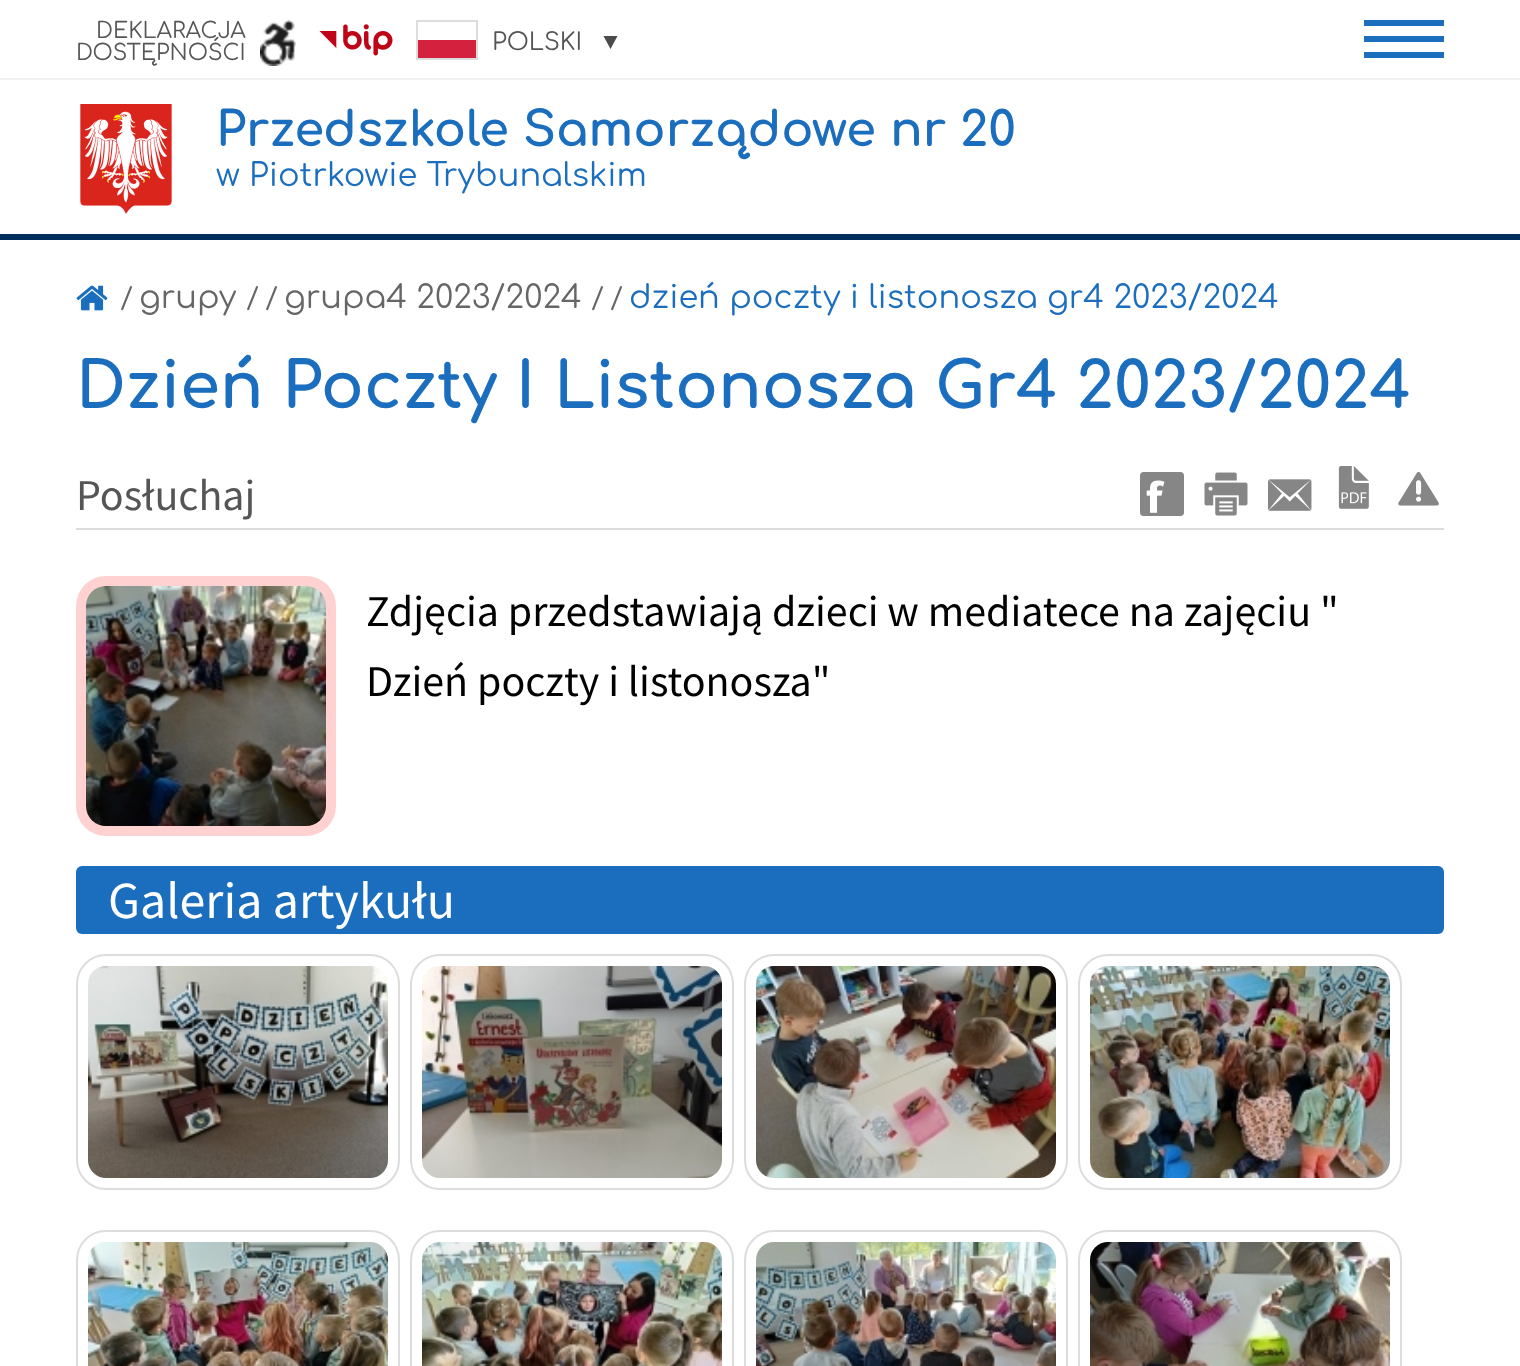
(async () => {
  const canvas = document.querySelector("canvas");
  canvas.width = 1520;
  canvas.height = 1366;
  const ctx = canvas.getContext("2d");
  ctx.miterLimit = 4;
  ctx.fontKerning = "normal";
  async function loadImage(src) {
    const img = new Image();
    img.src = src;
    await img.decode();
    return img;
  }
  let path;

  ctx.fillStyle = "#ffffff";
  ctx.fillRect(0, 0, 1520, 1366);
  ctx.fillStyle = "#002f5f";
  ctx.fillRect(0, 234, 1520, 6);
  ctx.fillStyle = "#f0f0f0";
  ctx.fillRect(0, 78, 1520, 2);
  ctx.drawImage(await loadImage("img/1.png"), 260, 20, 36, 46);
  ctx.drawImage(await loadImage("img/2.png"), 319, 24, 74, 32);
  for (const [x, y, w, h, color] of [
    [418, 40, 58, 18, "#d4213d"],
    [416, 20, 62, 2, "#dddddd"],
    [476, 20, 2, 40, "#dddddd"],
    [416, 20, 2, 40, "#dddddd"],
    [416, 58, 62, 2, "#dddddd"],
  ]) {
    ctx.fillStyle = color;
    ctx.fillRect(x, y, w, h);
  }
  ctx.fillStyle = "#4b4b4b";
  path = new Path2D("M617.5 36L610.5 49L603.5 36Z");
  ctx.fill(path);
  for (const [x, y, w, h, color] of [
    [1364, 36, 80, 6, "#1b6ebe"],
    [1364, 20, 80, 6, "#1b6ebe"],
    [1364, 52, 80, 6, "#1b6ebe"],
  ]) {
    ctx.fillStyle = color;
    ctx.fillRect(x, y, w, h);
  }
  ctx.drawImage(await loadImage("img/3.png"), 80, 104, 92, 110);
  ctx.drawImage(await loadImage("img/4.png"), 76, 285, 32, 26);
  ctx.fillStyle = "#dddddd";
  ctx.fillRect(76, 528, 1368, 2);
  ctx.drawImage(await loadImage("img/5.png"), 1140, 472, 44, 44);
  ctx.drawImage(await loadImage("img/6.png"), 1204, 472, 44, 44);
  ctx.drawImage(await loadImage("img/7.png"), 1268, 479, 44, 32);
  ctx.drawImage(await loadImage("img/8.png"), 1338, 466, 31, 43);
  ctx.drawImage(await loadImage("img/9.png"), 1398, 471, 41, 35);
  ctx.fillStyle = "#ffd1d1";
  ctx.beginPath();
  ctx.roundRect(76, 576, 260, 260, 30);
  ctx.fill();
  ctx.drawImage(await loadImage("img/10.png"), 86, 586, 240, 240);
  ctx.fillStyle = "#1b6ebe";
  ctx.beginPath();
  ctx.roundRect(76, 866, 1368, 68, 6);
  ctx.fill();
  ctx.beginPath();
  ctx.roundRect(77, 955, 322, 234, 29);
  ctx.strokeStyle = "#dddddd";
  ctx.lineWidth = 2;
  ctx.stroke();
  ctx.drawImage(await loadImage("img/11.png"), 88, 966, 300, 212);
  ctx.beginPath();
  ctx.roundRect(411, 955, 322, 234, 29);
  ctx.stroke();
  ctx.drawImage(await loadImage("img/12.png"), 422, 966, 300, 212);
  ctx.beginPath();
  ctx.roundRect(745, 955, 322, 234, 29);
  ctx.stroke();
  ctx.drawImage(await loadImage("img/13.png"), 756, 966, 300, 212);
  ctx.beginPath();
  ctx.roundRect(1079, 955, 322, 234, 29);
  ctx.stroke();
  ctx.drawImage(await loadImage("img/14.png"), 1090, 966, 300, 212);
  ctx.beginPath();
  ctx.roundRect(77, 1231, 322, 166, 29);
  ctx.stroke();
  ctx.drawImage(await loadImage("img/15.png"), 88, 1242, 300, 124);
  ctx.beginPath();
  ctx.roundRect(411, 1231, 322, 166, 29);
  ctx.stroke();
  ctx.drawImage(await loadImage("img/16.png"), 422, 1242, 300, 124);
  ctx.beginPath();
  ctx.roundRect(745, 1231, 322, 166, 29);
  ctx.stroke();
  ctx.drawImage(await loadImage("img/17.png"), 756, 1242, 300, 124);
  ctx.beginPath();
  ctx.roundRect(1079, 1231, 322, 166, 29);
  ctx.stroke();
  ctx.drawImage(await loadImage("img/18.png"), 1090, 1242, 300, 124);
  ctx.font = "22px Comfortaa";
  ctx.fillStyle = "#555555";
  ctx.fillText("DEKLARACJA", 96, 38);
  ctx.fillText("DOSTĘPNOŚCI", 76, 60);
  ctx.font = "24px Comfortaa";
  ctx.fillText("POLSKI", 492, 50);
  ctx.font = "bold 48px Comfortaa";
  ctx.fillStyle = "#1b6ebe";
  ctx.fillText("Przedszkole Samorządowe nr 20", 216, 146);
  ctx.font = "32px Comfortaa";
  ctx.fillText("w Piotrkowie Trybunalskim", 216, 186);
  ctx.font = "28px Comfortaa";
  ctx.fillStyle = "#666666";
  ctx.fillText("/", 120, 308);
  ctx.font = "32px Comfortaa";
  ctx.fillText("grupy", 139, 308);
  ctx.font = "28px Comfortaa";
  ctx.fillText("/", 246, 308);
  ctx.fillText("/", 265, 308);
  ctx.font = "32px Comfortaa";
  ctx.fillText("grupa4 2023/2024", 284, 308);
  ctx.font = "28px Comfortaa";
  ctx.fillText("/", 591, 308);
  ctx.fillText("/", 610, 308);
  ctx.font = "32px Comfortaa";
  ctx.fillStyle = "#1b6ebe";
  ctx.fillText("dzień poczty i listonosza gr4 2023/2024", 629, 308);
  ctx.font = "bold 64px Comfortaa";
  ctx.fillText("Dzień Poczty I Listonosza Gr4 2023/2024", 76, 408);
  ctx.font = "44px Source Sans Pro";
  ctx.fillStyle = "#555555";
  ctx.fillText("Posłuchaj", 76, 510);
  ctx.fillStyle = "#000000";
  ctx.fillText("Zdjęcia przedstawiają dzieci w mediatece na zajęciu \"", 366, 626);
  ctx.fillText("Dzień poczty i listonosza\"", 366, 696);
  ctx.font = "52px Source Sans Pro";
  ctx.fillStyle = "#ffffff";
  ctx.fillText("Galeria artykułu", 108, 918);
})();
